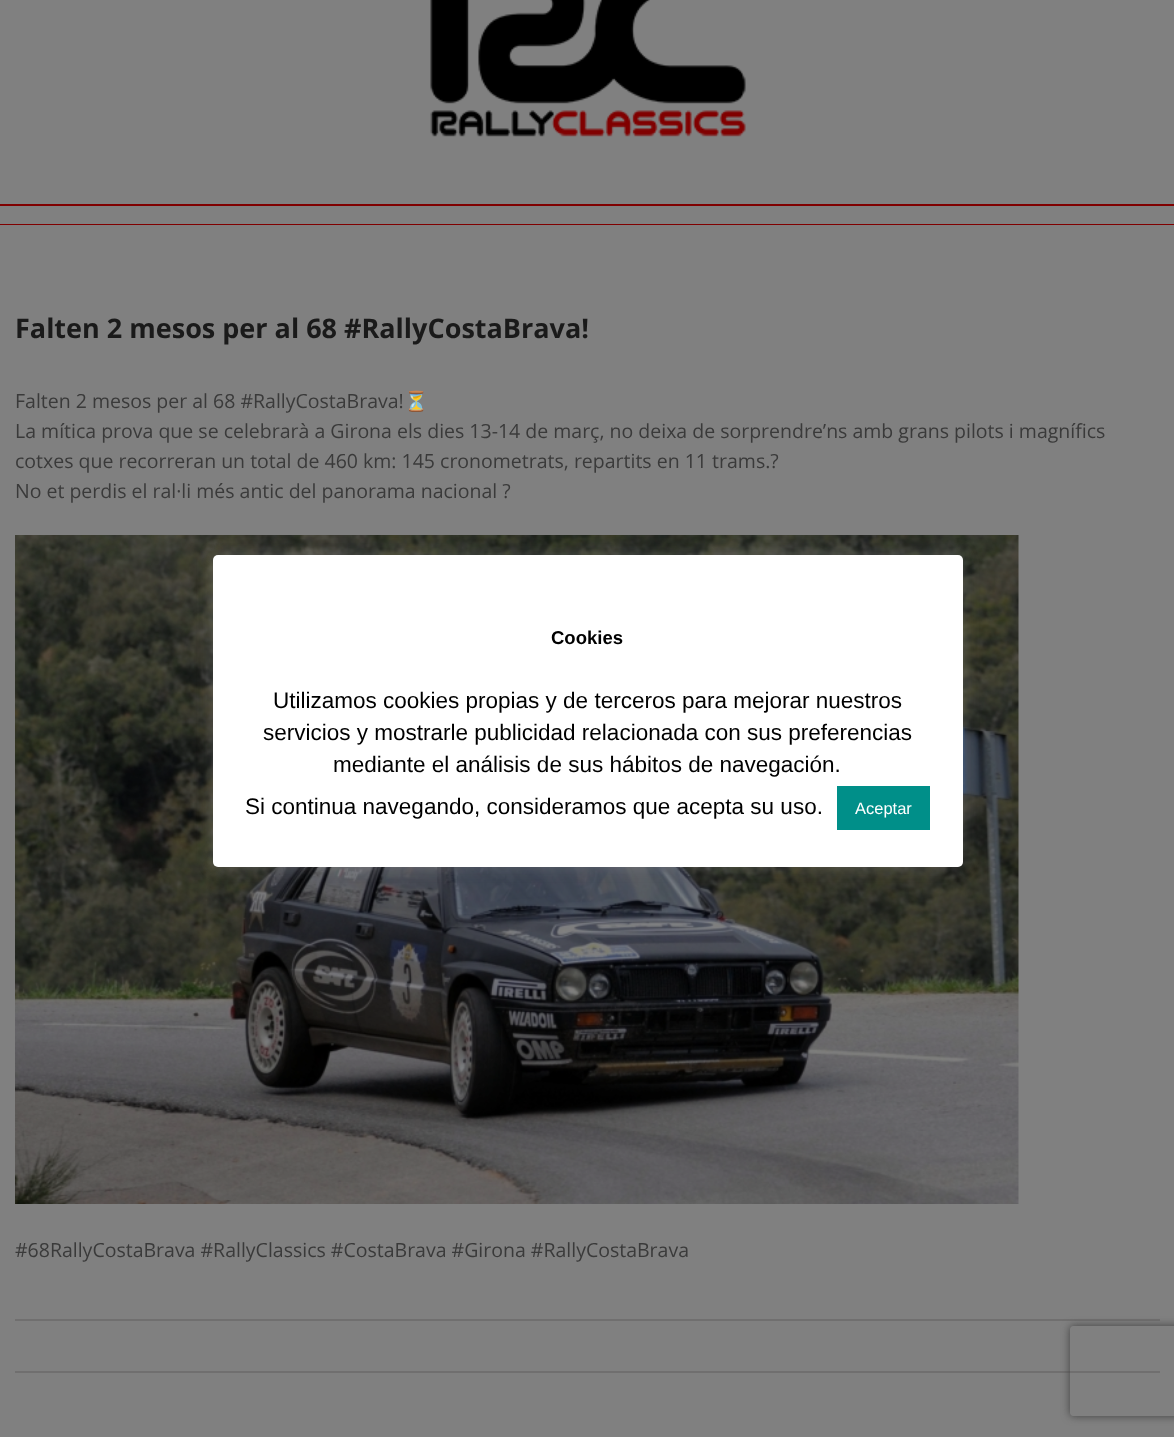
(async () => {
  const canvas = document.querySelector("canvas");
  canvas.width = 1174;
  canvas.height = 1437;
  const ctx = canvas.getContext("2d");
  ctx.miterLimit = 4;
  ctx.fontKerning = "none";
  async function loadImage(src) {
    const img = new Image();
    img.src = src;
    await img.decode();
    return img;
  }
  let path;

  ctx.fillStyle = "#808080";
  ctx.fillRect(0, 0, 1174, 1437);
  ctx.fillStyle = "#800000";
  ctx.fillRect(0, 204, 1174, 2);
  ctx.drawImage(await loadImage("img/1.png"), 430, 0, 316, 137);
  ctx.fillRect(0, 224, 1174, 1);
  ctx.drawImage(await loadImage("img/2.png"), 15, 535, 1004, 669);
  ctx.fillStyle = "#706f6f";
  ctx.fillRect(15, 1319, 1145, 2);
  ctx.fillRect(15, 1371, 1145, 2);
  ctx.fillStyle = "rgba(172, 171, 171, 0.3)";
  ctx.filter = "blur(7.5px)";
  ctx.beginPath();
  ctx.roundRect(213, 554, 750, 312, 5);
  ctx.fill();
  ctx.filter = "none";
  ctx.fillStyle = "#ffffff";
  ctx.beginPath();
  ctx.roundRect(213, 555, 750, 312, 5);
  ctx.fill();
  ctx.fillStyle = "#008f89";
  ctx.fillRect(837, 786, 93, 44);
  ctx.save();
  path = new Path2D("M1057 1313H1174V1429H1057ZM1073 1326H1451C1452.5 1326 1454 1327.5 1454 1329V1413C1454 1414.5 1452.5 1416 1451 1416H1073C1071.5 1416 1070 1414.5 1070 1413V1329C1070 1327.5 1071.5 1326 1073 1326Z");
  ctx.clip(path, "evenodd");
  ctx.fillStyle = "#404040";
  ctx.filter = "blur(4px)";
  ctx.beginPath();
  ctx.roundRect(1070, 1326, 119, 90, 3);
  ctx.fill();
  ctx.filter = "none";
  ctx.restore();
  ctx.font = "bold 27px Open Sans";
  ctx.fillStyle = "#1a1a1a";
  ctx.fillText("Falten 2 mesos per al 68 #RallyCostaBrava!", 15, 338);
  ctx.font = "19.5px Open Sans";
  ctx.fillStyle = "#3a3a3a";
  ctx.fillText("Falten 2 mesos per al 68 #RallyCostaBrava!", 15, 408);
  ctx.font = "19.5px Noto Color Emoji";
  ctx.fillText("⏳", 404, 408);
  ctx.font = "19.5px Open Sans";
  for (const [text, x, y] of [
    ["La mítica prova que se celebrarà a Girona els dies 13-14 de març, no deixa de sorprendre’ns amb grans pilots i magnífics", 15, 438],
    ["cotxes que recorreran un total de 460 km: 145 cronometrats, repartits en 11 trams.?", 15, 468],
    ["No et perdis el ral·li més antic del panorama nacional ?", 15, 498],
    ["#68RallyCostaBrava #RallyClassics #CostaBrava #Girona #RallyCostaBrava", 15, 1257],
  ]) {
    ctx.fillText(text, x, y);
  }
  ctx.font = "bold 18.5px Liberation Sans";
  ctx.fillStyle = "#000000";
  ctx.fillText("Cookies", 551, 644);
  ctx.font = "22.5px Liberation Sans";
  for (const [text, x, y] of [
    ["Utilizamos cookies propias y de terceros para mejorar nuestros", 273, 708],
    ["servicios y mostrarle publicidad relacionada con sus preferencias", 263, 740],
    ["mediante el análisis de sus hábitos de navegación.", 333, 772],
    ["Si continua navegando, consideramos que acepta su uso.", 245, 814],
  ]) {
    ctx.fillText(text, x, y);
  }
  ctx.font = "16.5px Liberation Sans";
  ctx.fillStyle = "#ffffff";
  ctx.fillText("Aceptar", 855, 814);
})();
